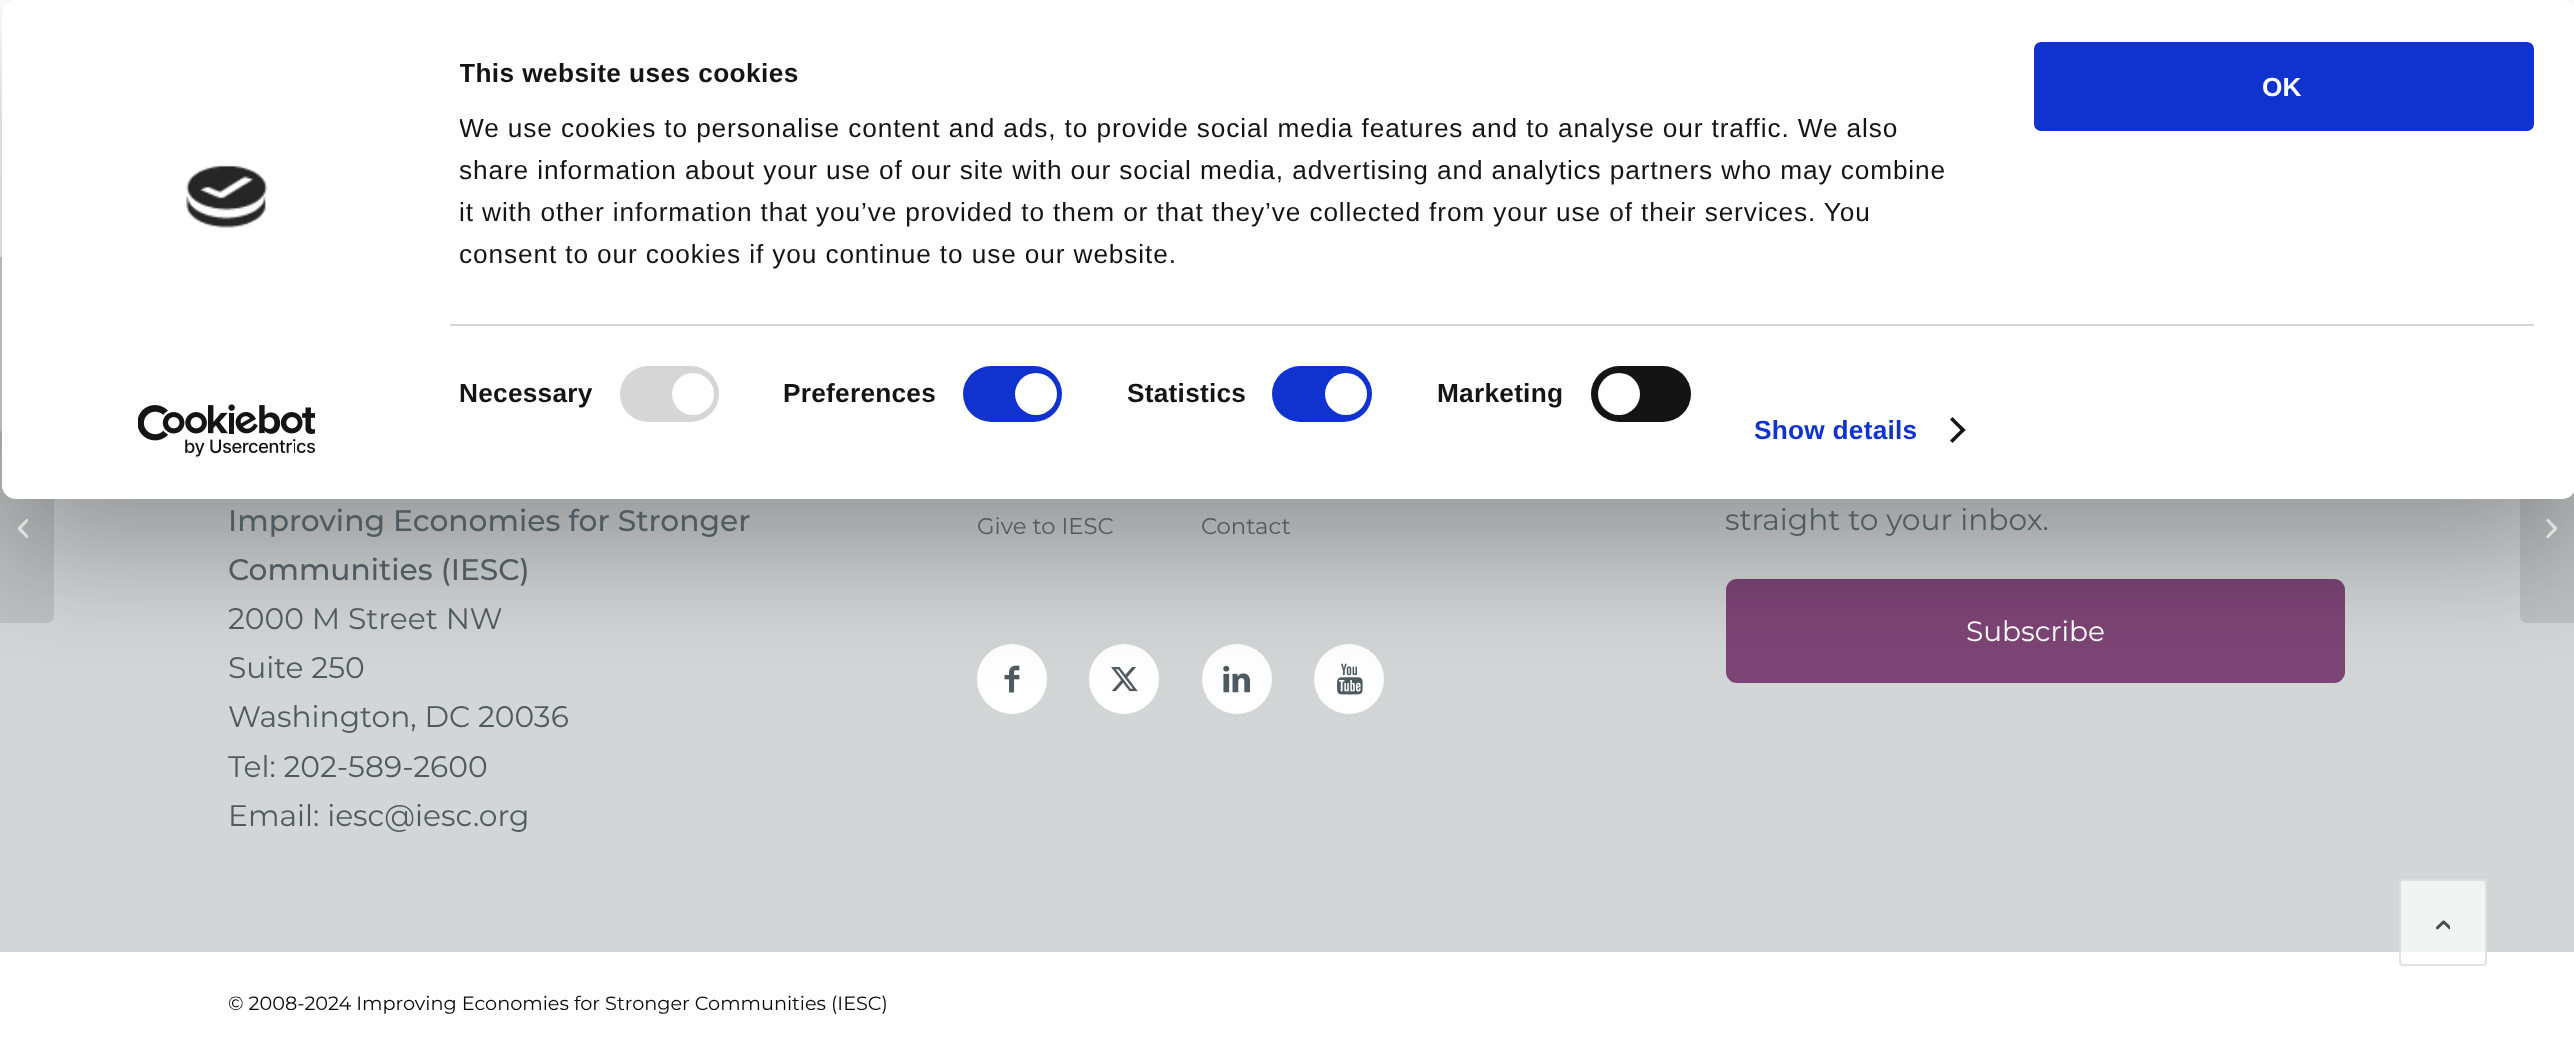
(async () => {
  const canvas = document.querySelector("canvas");
  canvas.width = 2574;
  canvas.height = 1052;
  const ctx = canvas.getContext("2d");
  ctx.miterLimit = 4;
  ctx.fontKerning = "normal";
  async function loadImage(src) {
    const img = new Image();
    img.src = src;
    await img.decode();
    return img;
  }
  let path;

  ctx.fillStyle = "#ffffff";
  ctx.fillRect(0, 0, 2574, 1052);
  ctx.fillStyle = "#d3d6d7";
  ctx.fillRect(0, 257, 2, 2);
  ctx.fillRect(0, 259, 2574, 693);
  ctx.fillStyle = "#bec1c2";
  ctx.beginPath();
  ctx.roundRect(0, 431, 54, 192, [0, 7, 7, 0]);
  ctx.fill();
  ctx.drawImage(await loadImage("img/3.png"), 18, 518, 10, 21);
  ctx.fillStyle = "#ffffff";
  ctx.beginPath();
  ctx.arc(1012, 679, 35, 0, Math.PI * 2);
  ctx.fill();
  ctx.drawImage(await loadImage("img/4.png"), 1004, 665, 16, 28);
  ctx.beginPath();
  ctx.arc(1124, 679, 35, 0, Math.PI * 2);
  ctx.fill();
  ctx.drawImage(await loadImage("img/5.png"), 1111, 667, 27, 25);
  ctx.beginPath();
  ctx.arc(1237, 679, 35, 0, Math.PI * 2);
  ctx.fill();
  ctx.drawImage(await loadImage("img/6.png"), 1223, 665, 28, 28);
  ctx.beginPath();
  ctx.arc(1349, 679, 35, 0, Math.PI * 2);
  ctx.fill();
  ctx.drawImage(await loadImage("img/7.png"), 1337, 663, 26, 32);
  ctx.fillStyle = "#7d4576";
  ctx.beginPath();
  ctx.roundRect(1726, 579, 619, 104, 11);
  ctx.fill();
  ctx.fillStyle = "#bec1c2";
  ctx.beginPath();
  ctx.roundRect(2520, 431, 54, 192, [7, 0, 0, 7]);
  ctx.fill();
  ctx.drawImage(await loadImage("img/8.png"), 2546, 518, 11, 21);
  ctx.save();
  path = new Path2D("M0 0H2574V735H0ZM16 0H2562C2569.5 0 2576 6.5 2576 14V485C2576 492.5 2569.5 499 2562 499H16C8.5 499 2 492.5 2 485V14C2 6.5 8.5 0 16 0Z");
  ctx.clip(path, "evenodd");
  ctx.fillStyle = "rgba(0, 0, 0, 0.3)";
  ctx.filter = "blur(61px)";
  ctx.beginPath();
  ctx.roundRect(2, 53, 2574, 498, 14);
  ctx.fill();
  ctx.filter = "none";
  ctx.restore();
  ctx.fillStyle = "#ffffff";
  ctx.beginPath();
  ctx.roundRect(2, 0, 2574, 499, 14);
  ctx.fill();
  ctx.fillStyle = "#d6d6d6";
  ctx.fillRect(450, 324, 2084, 2);
  ctx.beginPath();
  ctx.roundRect(620, 366, 99, 56, 28);
  ctx.fill();
  ctx.fillStyle = "#ffffff";
  ctx.beginPath();
  ctx.arc(693, 394, 21, 0, Math.PI * 2);
  ctx.fill();
  ctx.fillStyle = "#1032cf";
  ctx.beginPath();
  ctx.roundRect(963, 366, 99, 56, 28);
  ctx.fill();
  ctx.fillStyle = "#ffffff";
  ctx.beginPath();
  ctx.arc(1036, 394, 21, 0, Math.PI * 2);
  ctx.fill();
  ctx.fillStyle = "#1032cf";
  ctx.beginPath();
  ctx.roundRect(1272, 366, 100, 56, 28);
  ctx.fill();
  ctx.fillStyle = "#ffffff";
  ctx.beginPath();
  ctx.arc(1346, 394, 21, 0, Math.PI * 2);
  ctx.fill();
  ctx.fillStyle = "#141414";
  ctx.beginPath();
  ctx.roundRect(1591, 366, 100, 56, 28);
  ctx.fill();
  ctx.fillStyle = "#ffffff";
  ctx.beginPath();
  ctx.arc(1619, 394, 21, 0, Math.PI * 2);
  ctx.fill();
  ctx.fillStyle = "#141414";
  path = new Path2D("M1952.5 417L1965.5 430L1963 432.5L1950 419.5Z");
  ctx.fill(path);
  path = new Path2D("M1963 427.5L1965.5 430L1952.5 443L1950 440.5Z");
  ctx.fill(path);
  ctx.fillStyle = "#1032cf";
  ctx.beginPath();
  ctx.roundRect(2036, 44, 496, 85, 5);
  ctx.fill();
  ctx.strokeStyle = "#1032cf";
  ctx.lineWidth = 4;
  ctx.stroke();
  ctx.drawImage(await loadImage("img/1.png"), 186, 165, 81, 63);
  ctx.drawImage(await loadImage("img/2.png"), 138, 404, 177, 53);
  ctx.fillStyle = "rgba(255, 255, 255, 0.7)";
  ctx.beginPath();
  ctx.roundRect(2399, 879, 88, 87, 4);
  ctx.fill();
  ctx.beginPath();
  ctx.roundRect(2400, 880, 86, 85, 3);
  ctx.strokeStyle = "rgba(211, 214, 215, 0.7)";
  ctx.lineWidth = 2;
  ctx.stroke();
  ctx.drawImage(await loadImage("img/9.png"), 2436, 920, 14, 10);
  ctx.save();
  ctx.beginPath();
  ctx.rect(460, 53, 1523, 222);
  ctx.clip();
  ctx.letterSpacing = "0.4px";
  ctx.font = "bold 26.25px Liberation Sans";
  ctx.fillStyle = "#141414";
  ctx.fillText("This website uses cookies", 459, 82);
  ctx.letterSpacing = "0.88px";
  ctx.font = "26.25px Liberation Sans";
  ctx.fillText("We use cookies to personalise content and ads, to provide social media features and to analyse our traffic. We also", 459, 137);
  ctx.restore();
  ctx.letterSpacing = "0.88px";
  ctx.font = "26.25px Liberation Sans";
  ctx.fillStyle = "#141414";
  ctx.fillText("share information about your use of our site with our social media, advertising and analytics partners who may combine", 459, 179);
  ctx.fillText("it with other information that you’ve provided to them or that they’ve collected from your use of their services. You", 459, 221);
  ctx.save();
  ctx.beginPath();
  ctx.rect(460, 53, 1523, 222);
  ctx.clip();
  ctx.fillText("consent to our cookies if you continue to use our website.", 459, 263);
  ctx.restore();
  ctx.letterSpacing = "0.25px";
  ctx.font = "bold 26.25px Liberation Sans";
  for (const [text, x, y] of [
    ["Necessary", 459, 402],
    ["Preferences", 783, 402],
    ["Statistics", 1127, 402],
    ["Marketing", 1437, 402],
  ]) {
    ctx.fillText(text, x, y);
  }
  ctx.fillStyle = "#1032cf";
  ctx.fillText("Show details", 1754, 439);
  ctx.letterSpacing = "0px";
  ctx.fillStyle = "#ffffff";
  ctx.fillText("OK", 2262, 96);
  ctx.font = "500 29.75px Montserrat";
  ctx.fillStyle = "#505b61";
  ctx.fillText("Improving Economies for Stronger", 228, 531);
  ctx.fillText("Communities (IESC)", 228, 580);
  ctx.font = "100 29.75px Montserrat";
  for (const [text, x, y] of [
    ["2000 M Street NW", 228, 629],
    ["Suite 250", 228, 678],
    ["Washington, DC 20036", 228, 727],
    ["Tel: 202-589-2600", 228, 777],
    ["Email: iesc@iesc.org", 228, 826],
  ]) {
    ctx.fillText(text, x, y);
  }
  ctx.font = "100 22.75px Montserrat";
  ctx.fillText("Give to IESC", 977, 534);
  ctx.fillText("Contact", 1201, 534);
  ctx.font = "100 29.75px Montserrat";
  ctx.fillText("straight to your inbox.", 1725, 530);
  ctx.font = "100 28px Montserrat";
  ctx.fillStyle = "#ffffff";
  ctx.fillText("Subscribe", 1966, 641);
  ctx.font = "100 19.25px Montserrat";
  ctx.fillStyle = "#050505";
  ctx.fillText("© 2008-2024 Improving Economies for Stronger Communities (IESC)", 228, 1010);
})();
